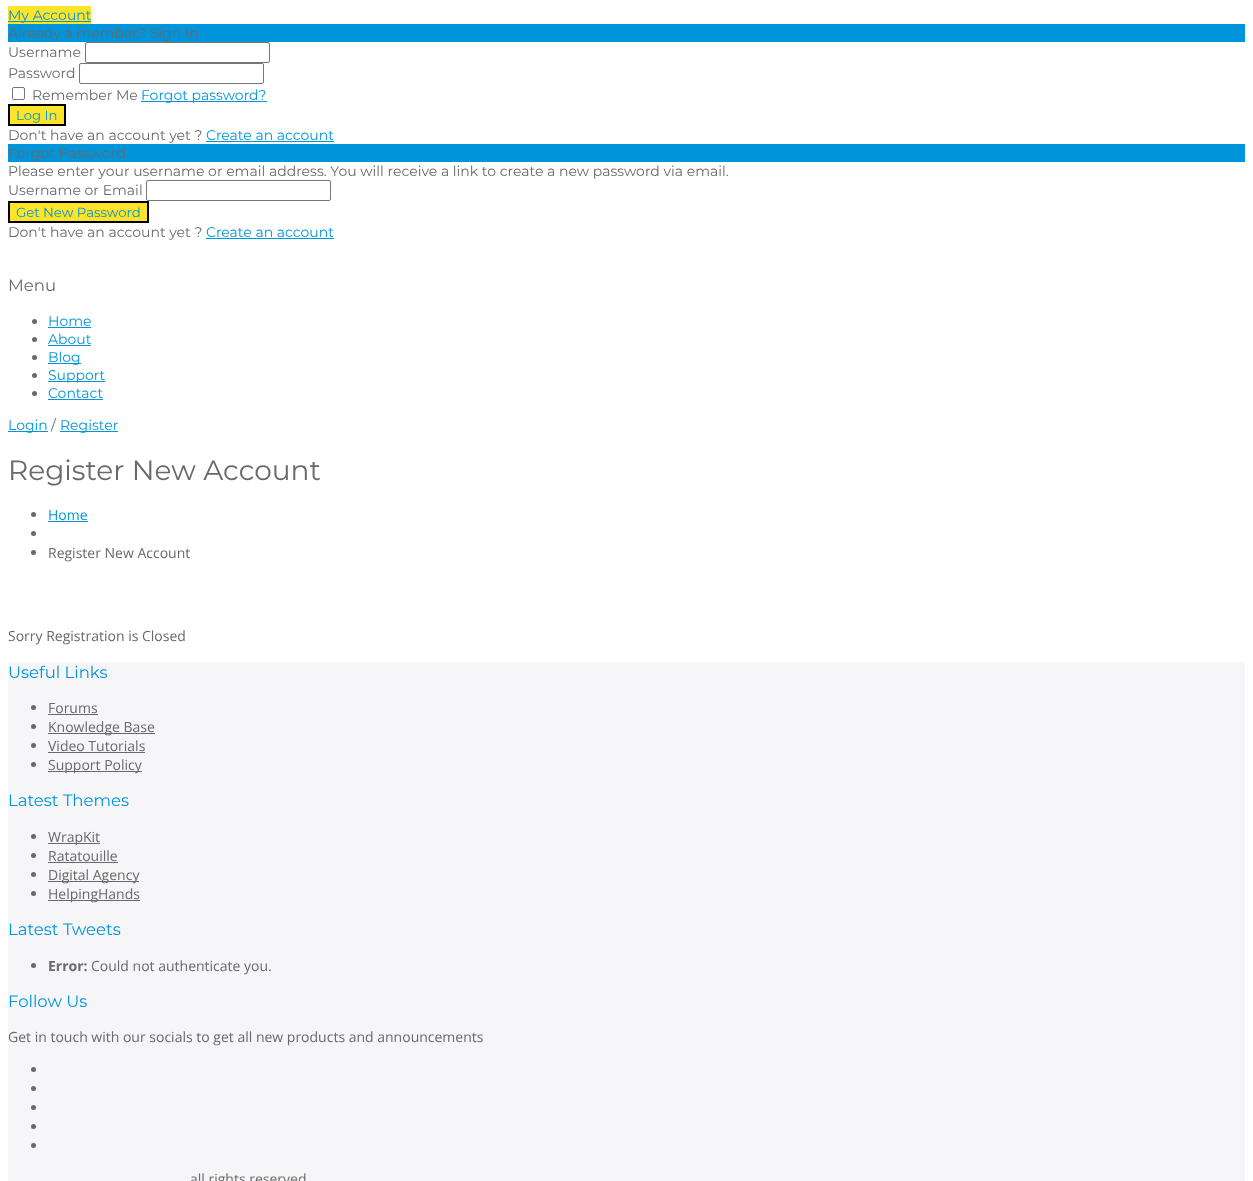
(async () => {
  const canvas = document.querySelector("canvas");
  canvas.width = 1253;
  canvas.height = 1181;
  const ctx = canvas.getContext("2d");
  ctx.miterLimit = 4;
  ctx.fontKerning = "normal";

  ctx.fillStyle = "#ffffff";
  ctx.fillRect(0, 0, 1253, 1181);
  for (const [x, y, w, h, color] of [
    [8, 6, 83, 18, "#fde428"],
    [8, 21, 83, 1, "#0095da"],
    [8, 24, 1237, 18, "#0095da"],
  ]) {
    ctx.fillStyle = color;
    ctx.fillRect(x, y, w, h);
  }
  ctx.beginPath();
  ctx.roundRect(85.5, 42.5, 184, 20, 1.5);
  ctx.strokeStyle = "#767676";
  ctx.stroke();
  ctx.beginPath();
  ctx.roundRect(79.5, 63.5, 184, 20, 1.5);
  ctx.stroke();
  ctx.beginPath();
  ctx.roundRect(12.5, 87.5, 12, 12, 1.5);
  ctx.stroke();
  ctx.fillRect(141, 101, 126, 1);
  ctx.fillStyle = "#fde428";
  ctx.beginPath();
  ctx.rect(9, 105, 56, 20);
  ctx.fill();
  ctx.strokeStyle = "#000000";
  ctx.lineWidth = 2;
  ctx.stroke();
  ctx.fillStyle = "#0095da";
  ctx.fillRect(206, 141, 128, 1);
  ctx.fillRect(8, 144, 1237, 18);
  ctx.beginPath();
  ctx.roundRect(146.5, 180.5, 184, 20, 1.5);
  ctx.strokeStyle = "#767676";
  ctx.lineWidth = 1;
  ctx.stroke();
  ctx.fillStyle = "#fde428";
  ctx.beginPath();
  ctx.rect(9, 202, 139, 20);
  ctx.fill();
  ctx.strokeStyle = "#000000";
  ctx.lineWidth = 2;
  ctx.stroke();
  ctx.fillStyle = "#0095da";
  ctx.fillRect(206, 238, 128, 1);
  ctx.fillStyle = "#696969";
  ctx.beginPath();
  ctx.arc(34.5, 321.5, 2.5, 0, Math.PI * 2);
  ctx.fill();
  ctx.fillStyle = "#0095da";
  ctx.fillRect(48, 327, 43, 1);
  ctx.fillStyle = "#696969";
  ctx.beginPath();
  ctx.arc(34.5, 339.5, 2.5, 0, Math.PI * 2);
  ctx.fill();
  ctx.fillStyle = "#0095da";
  ctx.fillRect(48, 345, 43, 1);
  ctx.fillStyle = "#696969";
  ctx.beginPath();
  ctx.arc(34.5, 357.5, 2.5, 0, Math.PI * 2);
  ctx.fill();
  ctx.fillStyle = "#0095da";
  ctx.fillRect(48, 363, 33, 1);
  ctx.fillStyle = "#696969";
  ctx.beginPath();
  ctx.arc(34.5, 375.5, 2.5, 0, Math.PI * 2);
  ctx.fill();
  ctx.fillStyle = "#0095da";
  ctx.fillRect(48, 381, 57, 1);
  ctx.fillStyle = "#696969";
  ctx.beginPath();
  ctx.arc(34.5, 393.5, 2.5, 0, Math.PI * 2);
  ctx.fill();
  for (const [x, y, w, h, color] of [
    [48, 399, 55, 1, "#0095da"],
    [8, 431, 40, 1, "#0095da"],
    [60, 431, 58, 1, "#0095da"],
  ]) {
    ctx.fillStyle = color;
    ctx.fillRect(x, y, w, h);
  }
  ctx.fillStyle = "#696969";
  ctx.beginPath();
  ctx.arc(33.5, 514.5, 2.5, 0, Math.PI * 2);
  ctx.fill();
  ctx.fillStyle = "#0095da";
  ctx.fillRect(48, 521, 40, 1);
  ctx.fillStyle = "#696969";
  ctx.beginPath();
  ctx.arc(33.5, 533.5, 2.5, 0, Math.PI * 2);
  ctx.fill();
  ctx.beginPath();
  ctx.arc(33.5, 552.5, 2.5, 0, Math.PI * 2);
  ctx.fill();
  ctx.fillStyle = "#f6f6f8";
  ctx.fillRect(8, 662, 1237, 519);
  ctx.fillStyle = "#696969";
  ctx.beginPath();
  ctx.arc(33.5, 707.5, 2.5, 0, Math.PI * 2);
  ctx.fill();
  ctx.fillRect(48, 714, 50, 1);
  ctx.beginPath();
  ctx.arc(33.5, 726.5, 2.5, 0, Math.PI * 2);
  ctx.fill();
  ctx.fillRect(48, 733, 107, 1);
  ctx.beginPath();
  ctx.arc(33.5, 745.5, 2.5, 0, Math.PI * 2);
  ctx.fill();
  ctx.fillRect(48, 752, 97, 1);
  ctx.beginPath();
  ctx.arc(33.5, 764.5, 2.5, 0, Math.PI * 2);
  ctx.fill();
  ctx.fillRect(48, 771, 94, 1);
  ctx.beginPath();
  ctx.arc(33.5, 836.5, 2.5, 0, Math.PI * 2);
  ctx.fill();
  ctx.fillRect(48, 843, 52, 1);
  ctx.beginPath();
  ctx.arc(33.5, 855.5, 2.5, 0, Math.PI * 2);
  ctx.fill();
  ctx.fillRect(48, 862, 70, 1);
  ctx.beginPath();
  ctx.arc(33.5, 874.5, 2.5, 0, Math.PI * 2);
  ctx.fill();
  ctx.fillRect(48, 881, 91, 1);
  ctx.beginPath();
  ctx.arc(33.5, 893.5, 2.5, 0, Math.PI * 2);
  ctx.fill();
  ctx.fillRect(48, 900, 92, 1);
  ctx.beginPath();
  ctx.arc(33.5, 965.5, 2.5, 0, Math.PI * 2);
  ctx.fill();
  ctx.beginPath();
  ctx.arc(33.5, 1069.5, 2.5, 0, Math.PI * 2);
  ctx.fill();
  ctx.beginPath();
  ctx.arc(33.5, 1088.5, 2.5, 0, Math.PI * 2);
  ctx.fill();
  ctx.beginPath();
  ctx.arc(33.5, 1107.5, 2.5, 0, Math.PI * 2);
  ctx.fill();
  ctx.beginPath();
  ctx.arc(33.5, 1126.5, 2.5, 0, Math.PI * 2);
  ctx.fill();
  ctx.beginPath();
  ctx.arc(33.5, 1145.5, 2.5, 0, Math.PI * 2);
  ctx.fill();
  ctx.font = "14px Montserrat";
  ctx.fillStyle = "#0095da";
  ctx.fillText("My Account", 8, 20);
  ctx.fillStyle = "#696969";
  for (const [text, x, y] of [
    ["Already a member? Sign In", 8, 38],
    ["Username", 8, 57],
    ["Password", 8, 78],
    ["Remember Me", 32, 100],
  ]) {
    ctx.fillText(text, x, y);
  }
  ctx.fillStyle = "#0095da";
  ctx.fillText("Forgot password?", 141, 100);
  ctx.font = "13.25px Montserrat";
  ctx.fillText("Log In", 16, 120);
  ctx.font = "14px Montserrat";
  ctx.fillStyle = "#696969";
  ctx.fillText("Don't have an account yet ?", 8, 140);
  ctx.fillStyle = "#0095da";
  ctx.fillText("Create an account", 206, 140);
  ctx.fillStyle = "#696969";
  for (const [text, x, y] of [
    ["Forgot Password", 8, 158],
    ["Please enter your username or email address. You will receive a link to create a new password via email.", 8, 176],
    ["Username or Email", 8, 195],
  ]) {
    ctx.fillText(text, x, y);
  }
  ctx.font = "13.25px Montserrat";
  ctx.fillStyle = "#0095da";
  ctx.fillText("Get New Password", 16, 217);
  ctx.font = "14px Montserrat";
  ctx.fillStyle = "#696969";
  ctx.fillText("Don't have an account yet ?", 8, 237);
  ctx.fillStyle = "#0095da";
  ctx.fillText("Create an account", 206, 237);
  ctx.font = "16.5px Montserrat";
  ctx.fillStyle = "#696969";
  ctx.fillText("Menu", 8, 291);
  ctx.font = "14px Montserrat";
  ctx.fillStyle = "#0095da";
  for (const [text, x, y] of [
    ["Home", 48, 326],
    ["About", 48, 344],
    ["Blog", 48, 362],
    ["Support", 48, 380],
    ["Contact", 48, 398],
    ["Login", 8, 430],
  ]) {
    ctx.fillText(text, x, y);
  }
  ctx.fillStyle = "#696969";
  ctx.fillText("/", 51, 430);
  ctx.fillStyle = "#0095da";
  ctx.fillText("Register", 60, 430);
  ctx.font = "28px Montserrat";
  ctx.fillStyle = "#696969";
  ctx.fillText("Register New Account", 8, 480);
  ctx.font = "14px Open Sans";
  ctx.fillStyle = "#0095da";
  ctx.fillText("Home", 48, 520);
  ctx.fillStyle = "#696969";
  ctx.fillText("Register New Account", 48, 558);
  ctx.fillText("Sorry Registration is Closed", 8, 641);
  ctx.font = "16.5px Montserrat";
  ctx.fillStyle = "#0095da";
  ctx.fillText("Useful Links", 8, 678);
  ctx.font = "14px Open Sans";
  ctx.fillStyle = "#696969";
  for (const [text, x, y] of [
    ["Forums", 48, 713],
    ["Knowledge Base", 48, 732],
    ["Video Tutorials", 48, 751],
    ["Support Policy", 48, 770],
  ]) {
    ctx.fillText(text, x, y);
  }
  ctx.font = "16.5px Montserrat";
  ctx.fillStyle = "#0095da";
  ctx.fillText("Latest Themes", 8, 806);
  ctx.font = "14px Open Sans";
  ctx.fillStyle = "#696969";
  for (const [text, x, y] of [
    ["WrapKit", 48, 842],
    ["Ratatouille", 48, 861],
    ["Digital Agency", 48, 880],
    ["HelpingHands", 48, 899],
  ]) {
    ctx.fillText(text, x, y);
  }
  ctx.font = "16.5px Montserrat";
  ctx.fillStyle = "#0095da";
  ctx.fillText("Latest Tweets", 8, 935);
  ctx.font = "bold 14px Open Sans";
  ctx.fillStyle = "#696969";
  ctx.fillText("Error:", 48, 971);
  ctx.font = "14px Open Sans";
  ctx.fillText("Could not authenticate you.", 91, 971);
  ctx.font = "16.5px Montserrat";
  ctx.fillStyle = "#0095da";
  ctx.fillText("Follow Us", 8, 1007);
  ctx.font = "14px Open Sans";
  ctx.fillStyle = "#696969";
  ctx.fillText("Get in touch with our socials to get all new products and announcements", 8, 1042);
  ctx.fillText("all rights reserved", 190, 1184);
})();
